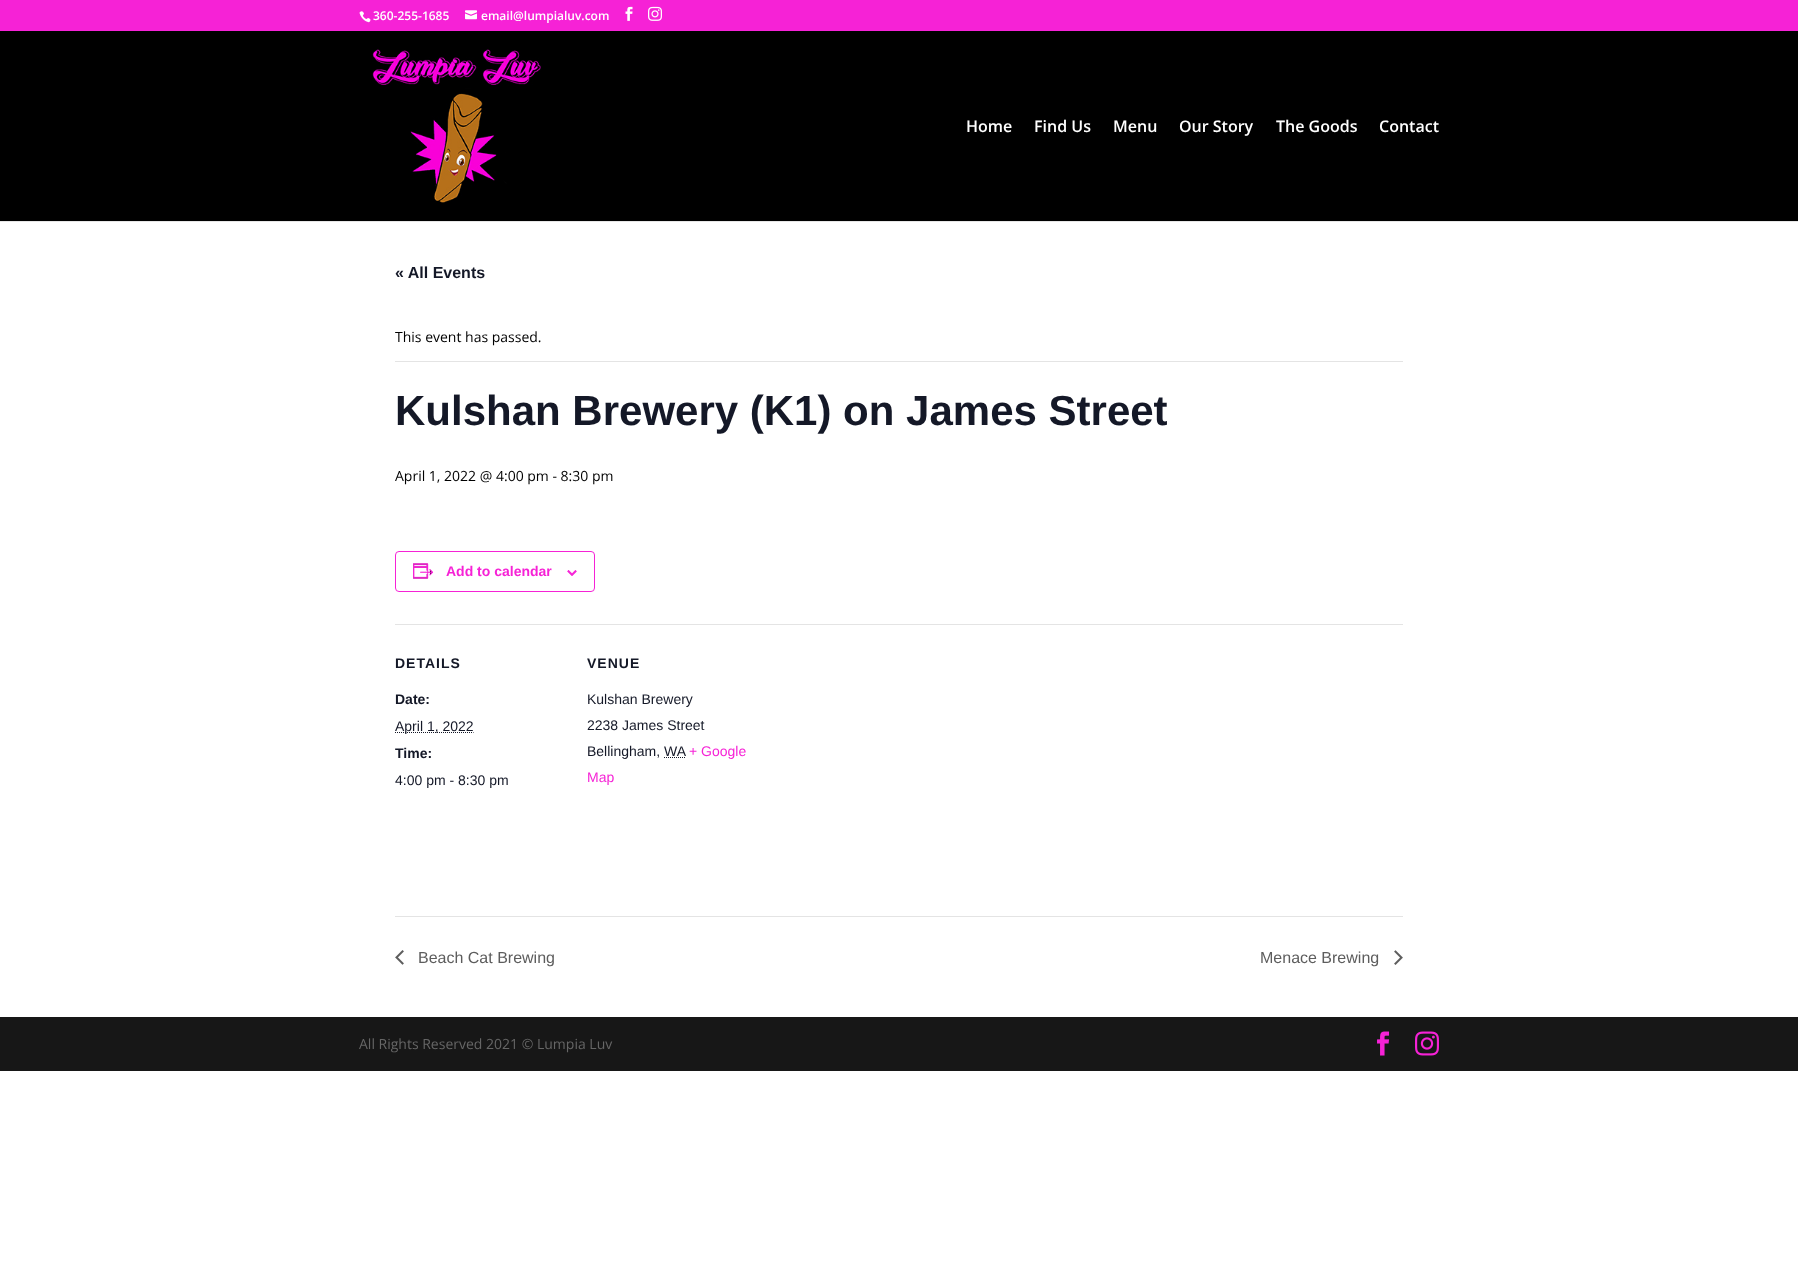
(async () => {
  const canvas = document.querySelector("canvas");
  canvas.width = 1798;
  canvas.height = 1280;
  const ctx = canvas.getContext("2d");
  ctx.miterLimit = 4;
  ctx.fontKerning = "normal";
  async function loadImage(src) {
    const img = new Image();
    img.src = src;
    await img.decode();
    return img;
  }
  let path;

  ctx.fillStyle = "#ffffff";
  ctx.fillRect(0, 0, 1798, 1280);
  ctx.fillStyle = "#f622d6";
  ctx.fillRect(0, 0, 1798, 31);
  ctx.drawImage(await loadImage("img/1.png"), 359, 11, 12, 12);
  ctx.drawImage(await loadImage("img/2.png"), 465, 10, 12, 10);
  ctx.drawImage(await loadImage("img/3.png"), 625, 6, 8, 15);
  ctx.drawImage(await loadImage("img/4.png"), 648, 6, 14, 15);
  ctx.fillStyle = "#e6e6e6";
  ctx.fillRect(0, 221, 1798, 1);
  ctx.fillStyle = "#000000";
  ctx.fillRect(0, 31, 1798, 190);
  ctx.drawImage(await loadImage("img/5.png"), 372, 49, 169, 154);
  ctx.fillStyle = "#e4e4e4";
  ctx.fillRect(395, 361, 1008, 1);
  ctx.beginPath();
  ctx.roundRect(395.5, 551.5, 199, 40, 3.5);
  ctx.strokeStyle = "#f622d6";
  ctx.stroke();
  ctx.drawImage(await loadImage("img/6.png"), 413, 563, 21, 16);
  ctx.drawImage(await loadImage("img/7.png"), 567, 570, 10, 6);
  ctx.fillRect(395, 624, 1008, 1);
  path = new Path2D("M395 732.5H473.5");
  ctx.strokeStyle = "#141827";
  ctx.setLineDash([1, 1]);
  ctx.stroke(path);
  path = new Path2D("M664 757.5H685.5");
  ctx.stroke(path);
  ctx.fillRect(395, 916, 1008, 1);
  ctx.drawImage(await loadImage("img/8.png"), 395, 950, 9, 15);
  ctx.drawImage(await loadImage("img/9.png"), 1394, 950, 9, 15);
  ctx.fillStyle = "#171717";
  ctx.fillRect(0, 1017, 1798, 54);
  ctx.drawImage(await loadImage("img/10.png"), 1377, 1031, 13, 25);
  ctx.drawImage(await loadImage("img/11.png"), 1415, 1031, 24, 25);
  ctx.font = "600 12px Open Sans";
  ctx.fillStyle = "#ffffff";
  ctx.fillText("360-255-1685", 373, 20);
  ctx.fillText("email@lumpialuv.com", 481, 20);
  ctx.font = "600 16px Open Sans";
  for (const [text, x, y] of [
    ["Home", 966, 132],
    ["Find Us", 1034, 132],
    ["Menu", 1113, 132],
    ["Our Story", 1179, 132],
    ["The Goods", 1276, 132],
    ["Contact", 1379, 132],
  ]) {
    ctx.fillText(text, x, y);
  }
  ctx.font = "bold 16px Liberation Sans";
  ctx.fillStyle = "#141827";
  ctx.fillText("« All Events", 395, 278);
  ctx.font = "14px Open Sans";
  ctx.fillStyle = "#000000";
  ctx.fillText("This event has passed.", 395, 342);
  ctx.font = "bold 42px Liberation Sans";
  ctx.fillStyle = "#141827";
  ctx.fillText("Kulshan Brewery (K1) on James Street", 395, 425);
  ctx.font = "14px Open Sans";
  ctx.fillStyle = "#000000";
  ctx.fillText("April 1, 2022 @ 4:00 pm - 8:30 pm", 395, 481);
  ctx.font = "bold 14px Liberation Sans";
  ctx.fillStyle = "#f622d6";
  ctx.fillText("Add to calendar", 446, 576);
  ctx.letterSpacing = "1px";
  ctx.fillStyle = "#141827";
  ctx.fillText("DETAILS", 395, 668);
  ctx.letterSpacing = "0px";
  ctx.fillText("Date:", 395, 704);
  ctx.font = "14px Liberation Sans";
  ctx.fillText("April 1, 2022", 395, 731);
  ctx.font = "bold 14px Liberation Sans";
  ctx.fillText("Time:", 395, 758);
  ctx.font = "14px Liberation Sans";
  ctx.fillText("4:00 pm - 8:30 pm", 395, 785);
  ctx.letterSpacing = "1px";
  ctx.font = "bold 14px Liberation Sans";
  ctx.fillText("VENUE", 587, 668);
  ctx.letterSpacing = "0px";
  ctx.font = "14px Liberation Sans";
  for (const [text, x, y] of [
    ["Kulshan Brewery", 587, 704],
    ["2238 James Street", 587, 730],
    ["Bellingham, WA", 587, 756],
  ]) {
    ctx.fillText(text, x, y);
  }
  ctx.fillStyle = "#f622d6";
  ctx.fillText("+ Google", 689, 756);
  ctx.fillText("Map", 587, 782);
  ctx.font = "16px Liberation Sans";
  ctx.fillStyle = "#5d5d5d";
  ctx.fillText("Beach Cat Brewing", 418, 963);
  ctx.fillText("Menace Brewing", 1260, 963);
  ctx.font = "14px Open Sans";
  ctx.fillStyle = "#666666";
  ctx.fillText("All Rights Reserved 2021 © Lumpia Luv", 359, 1049);
})();
